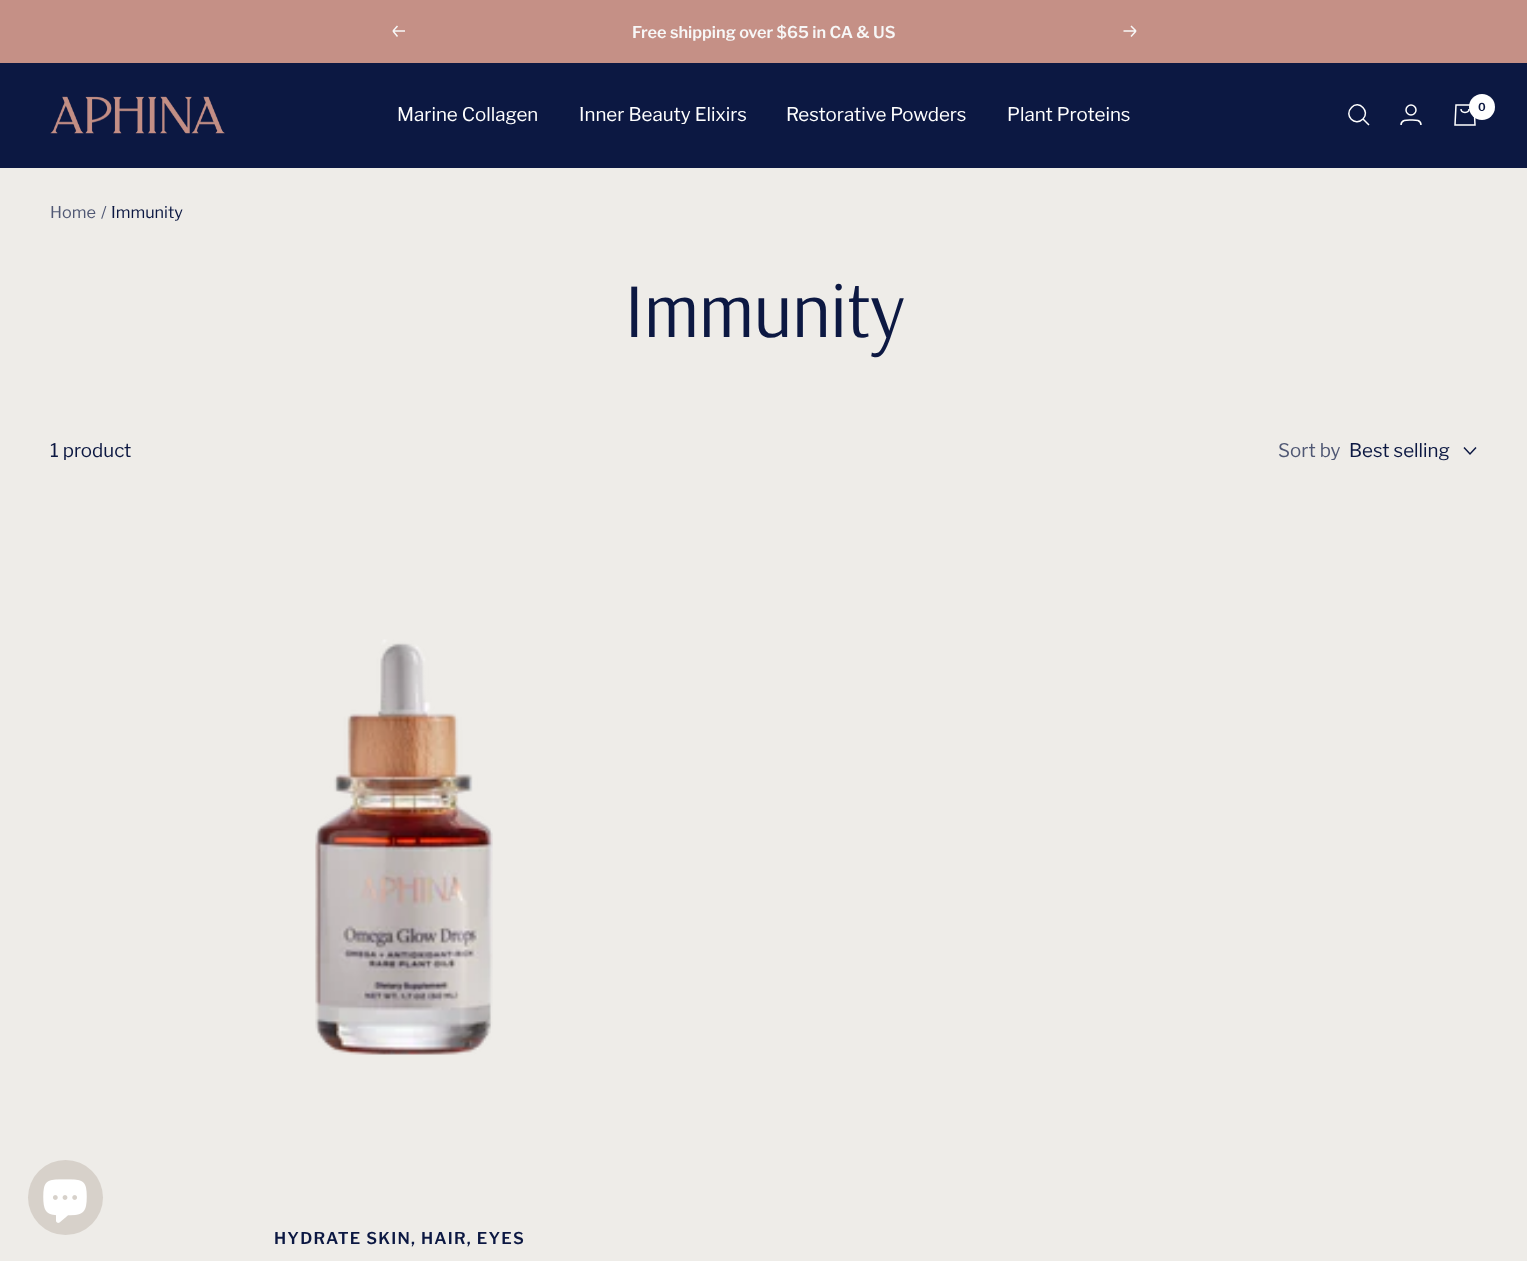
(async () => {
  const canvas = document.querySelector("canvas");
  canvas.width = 1527;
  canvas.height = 1261;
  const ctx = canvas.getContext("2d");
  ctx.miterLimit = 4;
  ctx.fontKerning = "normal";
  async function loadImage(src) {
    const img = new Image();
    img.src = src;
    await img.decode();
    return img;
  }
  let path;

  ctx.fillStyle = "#eeece8";
  ctx.fillRect(0, 0, 1527, 1261);
  ctx.fillStyle = "#c59086";
  ctx.fillRect(0, 0, 1527, 63);
  path = new Path2D("M405 31H393M393 31L397.5 36.5M393 31L397.5 26");
  ctx.strokeStyle = "#f7f7f7";
  ctx.lineWidth = 1.5;
  ctx.stroke(path);
  path = new Path2D("M1123.5 31H1136M1136 31L1131 36.5M1136 31L1131 26");
  ctx.stroke(path);
  ctx.fillStyle = "#0c1842";
  ctx.fillRect(0, 63, 1527, 105);
  ctx.drawImage(await loadImage("img/1.png"), 50, 96, 175, 38);
  path = new Path2D("M1363 119C1370.5 111.5 1359 99.5 1351.5 107.5C1343.5 115.5 1355 127 1363 119ZM1363 119L1369 125");
  ctx.strokeStyle = "#ffffff";
  ctx.stroke(path);
  ctx.beginPath();
  ctx.arc(1411, 110, 5, 0, Math.PI * 2);
  ctx.stroke();
  path = new Path2D("M1401 125C1401 119.5 1407.5 120 1411 120C1415 120 1421 119.5 1421 125");
  ctx.stroke(path);
  path = new Path2D("M1456 105H1474L1475 125H1455ZM1461 109C1461 113.5 1469 113.5 1469 109");
  ctx.stroke(path);
  ctx.fillStyle = "#ffffff";
  ctx.beginPath();
  ctx.arc(1482, 107, 13, 0, Math.PI * 2);
  ctx.fill();
  path = new Path2D("M1464 447.5L1470 454L1476 447.5");
  ctx.strokeStyle = "#0c1842";
  ctx.stroke(path);
  ctx.drawImage(await loadImage("img/2.png"), 315, 639, 178, 416);
  ctx.fillStyle = "#d7d1ca";
  ctx.beginPath();
  ctx.arc(65.5, 1197.5, 37.5, 0, Math.PI * 2);
  ctx.fill();
  ctx.drawImage(await loadImage("img/3.png"), 43, 1179, 44, 44);
  ctx.font = "600 16.25px Libre Franklin";
  ctx.fillStyle = "#f7f7f7";
  ctx.fillText("Free shipping over $65 in CA & US", 632, 38);
  ctx.font = "18.75px Libre Franklin";
  ctx.fillStyle = "#ffffff";
  for (const [text, x, y] of [
    ["Marine Collagen", 397, 121],
    ["Inner Beauty Elixirs", 579, 121],
    ["Restorative Powders", 786, 121],
    ["Plant Proteins", 1007, 121],
  ]) {
    ctx.fillText(text, x, y);
  }
  ctx.font = "600 11px Libre Franklin";
  ctx.fillStyle = "#0c1842";
  ctx.fillText("0", 1478, 111);
  ctx.font = "16.25px Libre Franklin";
  ctx.fillStyle = "#505874";
  ctx.fillText("Home", 50, 218);
  ctx.fillText("/", 101, 218);
  ctx.fillStyle = "#0c1842";
  ctx.fillText("Immunity", 111, 218);
  ctx.letterSpacing = "-1.25px";
  ctx.font = "77.5px Arsenal";
  ctx.fillText("Immunity", 624, 337);
  ctx.letterSpacing = "0px";
  ctx.font = "18.75px Libre Franklin";
  ctx.fillText("1 product", 50, 457);
  ctx.fillStyle = "#505874";
  ctx.fillText("Sort by", 1278, 457);
  ctx.fillStyle = "#0c1842";
  ctx.fillText("Best selling", 1349, 457);
  ctx.letterSpacing = "1.25px";
  ctx.font = "600 16.25px Libre Franklin";
  ctx.fillText("HYDRATE SKIN, HAIR, EYES", 274, 1244);
})();
